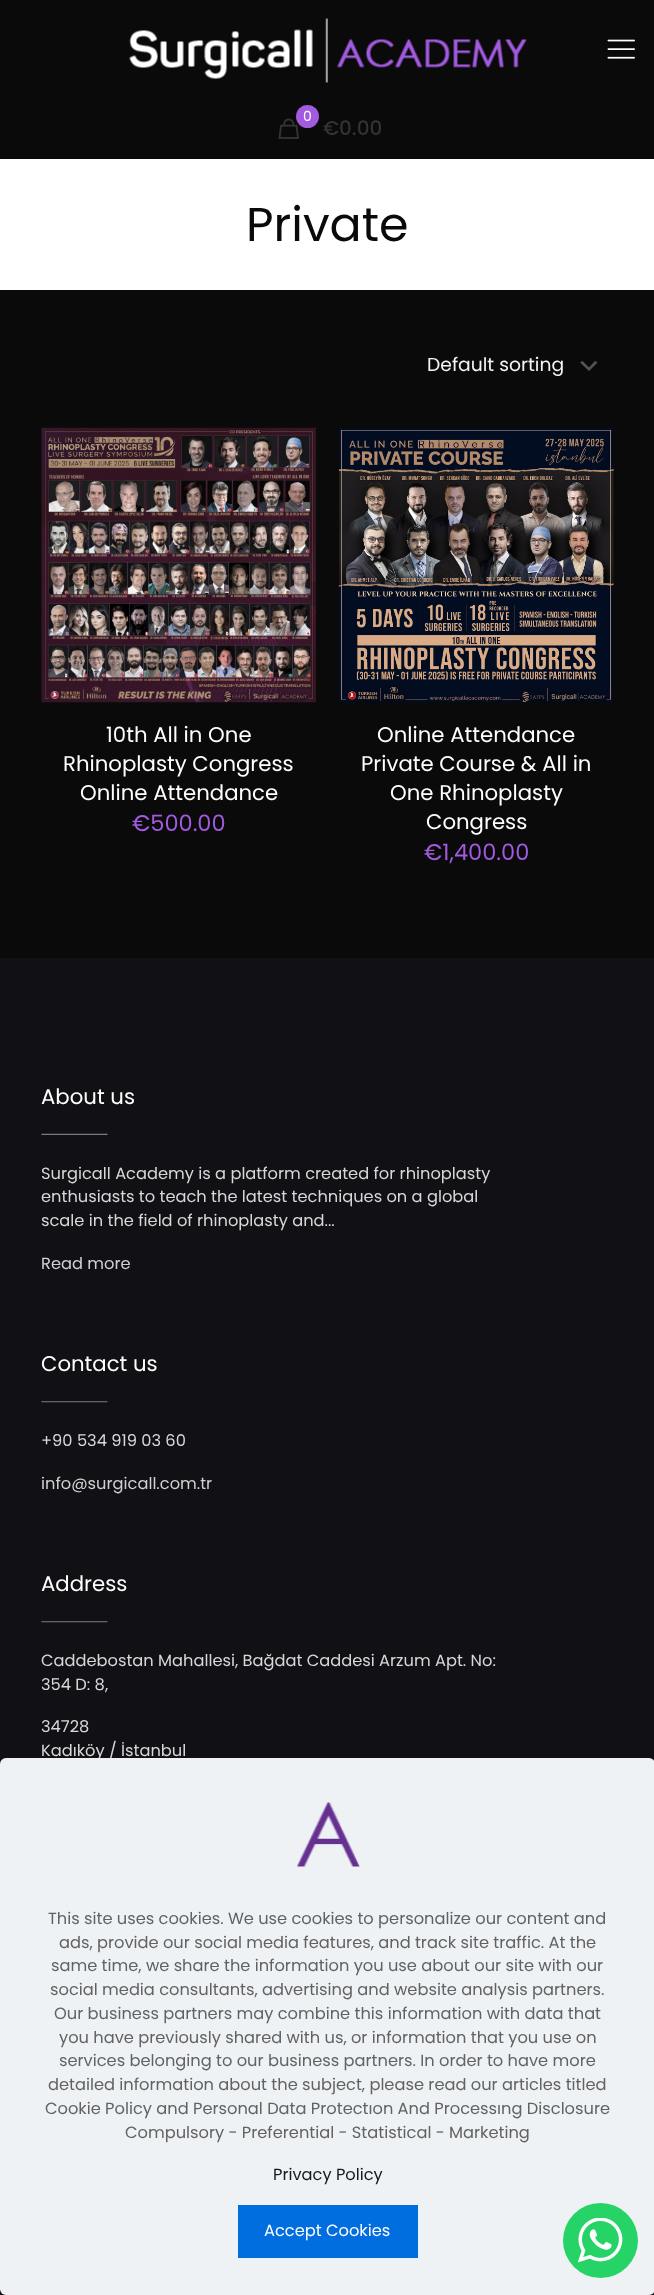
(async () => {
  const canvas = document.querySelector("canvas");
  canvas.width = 654;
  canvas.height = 2295;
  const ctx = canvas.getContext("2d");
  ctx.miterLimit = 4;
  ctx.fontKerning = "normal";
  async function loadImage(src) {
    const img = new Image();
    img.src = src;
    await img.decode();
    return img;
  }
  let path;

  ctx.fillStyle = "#0a0a0a";
  ctx.fillRect(0, 0, 654, 2295);
  ctx.drawImage(await loadImage("img/1.png"), 129, 18, 398, 65);
  ctx.drawImage(await loadImage("img/2.png"), 607, 39, 28, 20);
  ctx.drawImage(await loadImage("img/3.png"), 278, 118, 21, 21);
  ctx.fillStyle = "#a25be0";
  ctx.beginPath();
  ctx.arc(307.5, 116.5, 11.5, 0, Math.PI * 2);
  ctx.fill();
  ctx.fillStyle = "#ffffff";
  ctx.fillRect(0, 159, 654, 131);
  ctx.fillStyle = "#555555";
  path = new Path2D("M582.5 361L589 367.5L595 361L597.5 362.5L589 371L580 362.5Z");
  ctx.fill(path);
  ctx.drawImage(await loadImage("img/4.png"), 41, 427, 275, 276);
  ctx.drawImage(await loadImage("img/5.png"), 338, 427, 276, 276);
  ctx.fillStyle = "#101015";
  ctx.fillRect(0, 958, 654, 1337);
  ctx.drawImage(await loadImage("img/6.png"), 41, 1133, 67, 2);
  ctx.drawImage(await loadImage("img/7.png"), 41, 1401, 67, 2);
  ctx.drawImage(await loadImage("img/7.png"), 41, 1621, 67, 2);
  ctx.font = "14px Poppins";
  ctx.fillStyle = "#ffffff";
  ctx.fillText("0", 303, 121);
  ctx.font = "500 20px Poppins";
  ctx.fillStyle = "#333333";
  ctx.fillText("€0.00", 323, 135);
  ctx.font = "47.5px Poppins";
  ctx.fillStyle = "#0a0a0a";
  ctx.fillText("Private", 246, 241);
  ctx.font = "18.75px Poppins";
  ctx.fillStyle = "#f4f4f4";
  ctx.fillText("Default sorting", 427, 371);
  ctx.font = "21.25px Poppins";
  ctx.fillStyle = "#ffffff";
  for (const [text, x, y] of [
    ["10th All in One", 106, 742],
    ["Rhinoplasty Congress", 63, 771],
    ["Online Attendance", 80, 800],
  ]) {
    ctx.fillText(text, x, y);
  }
  ctx.font = "22.5px Poppins";
  ctx.fillStyle = "#a25be0";
  ctx.fillText("€500.00", 132, 831);
  ctx.font = "21.25px Poppins";
  ctx.fillStyle = "#ffffff";
  for (const [text, x, y] of [
    ["Online Attendance", 377, 742],
    ["Private Course & All in", 361, 771],
    ["One Rhinoplasty", 390, 800],
    ["Congress", 426, 829],
  ]) {
    ctx.fillText(text, x, y);
  }
  ctx.font = "22.5px Poppins";
  ctx.fillStyle = "#a25be0";
  ctx.fillText("€1,400.00", 424, 860);
  ctx.font = "21.25px Poppins";
  ctx.fillStyle = "#ffffff";
  ctx.fillText("About us", 41, 1104);
  ctx.font = "16.25px Poppins";
  ctx.fillStyle = "#d8d8d8";
  for (const [text, x, y] of [
    ["Surgicall Academy is a platform created for rhinoplasty", 41, 1179],
    ["enthusiasts to teach the latest techniques on a global", 41, 1202],
    ["scale in the field of rhinoplasty and...", 41, 1226],
  ]) {
    ctx.fillText(text, x, y);
  }
  ctx.fillStyle = "#d1d1d1";
  ctx.fillText("Read more", 41, 1269);
  ctx.font = "21.25px Poppins";
  ctx.fillStyle = "#ffffff";
  ctx.fillText("Contact us", 41, 1371);
  ctx.font = "16.25px Poppins";
  ctx.fillStyle = "#d8d8d8";
  ctx.fillText("+90 534 919 03 60", 41, 1446);
  ctx.fillStyle = "#d1d1d1";
  ctx.fillText("info@surgicall.com.tr", 41, 1489);
  ctx.font = "21.25px Poppins";
  ctx.fillStyle = "#ffffff";
  ctx.fillText("Address", 41, 1591);
  ctx.font = "16.25px Poppins";
  ctx.fillStyle = "#d8d8d8";
  for (const [text, x, y] of [
    ["Caddebostan Mahallesi, Bağdat Caddesi Arzum Apt. No:", 41, 1666],
    ["354 D: 8,", 41, 1690],
    ["34728", 41, 1732],
    ["Kadıköy / İstanbul", 41, 1756],
  ]) {
    ctx.fillText(text, x, y);
  }
  ctx.fillStyle = "#eef2f5";
  ctx.beginPath();
  ctx.roundRect(0, 1758, 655, 537, 6);
  ctx.fill();
  ctx.drawImage(await loadImage("img/8.png"), 297, 1802, 63, 65);
  ctx.fillStyle = "#626262";
  for (const [text, x, y] of [
    ["This site uses cookies. We use cookies to personalize our content and", 48, 1924],
    ["ads, provide our social media features, and track site traffic. At the", 59, 1948],
    ["same time, we share the information you use about our site with our", 51, 1971],
    ["social media consultants, advertising and website analysis partners.", 50, 1995],
    ["Our business partners may combine this information with data that", 54, 2019],
    ["you have previously shared with us, or information that you use on", 59, 2043],
    ["services belonging to our business partners. In order to have more", 59, 2066],
    ["detailed information about the subject, please read our articles titled", 48, 2090],
    ["Cookie Policy and Personal Data Protectıon And Processıng Disclosure", 45, 2114],
    ["Compulsory - Preferential - Statistical - Marketing", 125, 2138],
  ]) {
    ctx.fillText(text, x, y);
  }
  ctx.fillStyle = "#161922";
  ctx.fillText("Privacy Policy", 273, 2180);
  ctx.fillStyle = "#006edf";
  ctx.fillRect(238, 2205, 180, 53);
  ctx.fillStyle = "#ffffff";
  ctx.fillText("Accept Cookies", 264, 2236);
  ctx.fillStyle = "#25d366";
  ctx.beginPath();
  ctx.arc(600.5, 2240.5, 37.5, 0, Math.PI * 2);
  ctx.fill();
  ctx.drawImage(await loadImage("img/9.png"), 578, 2218, 45, 45);
})();
